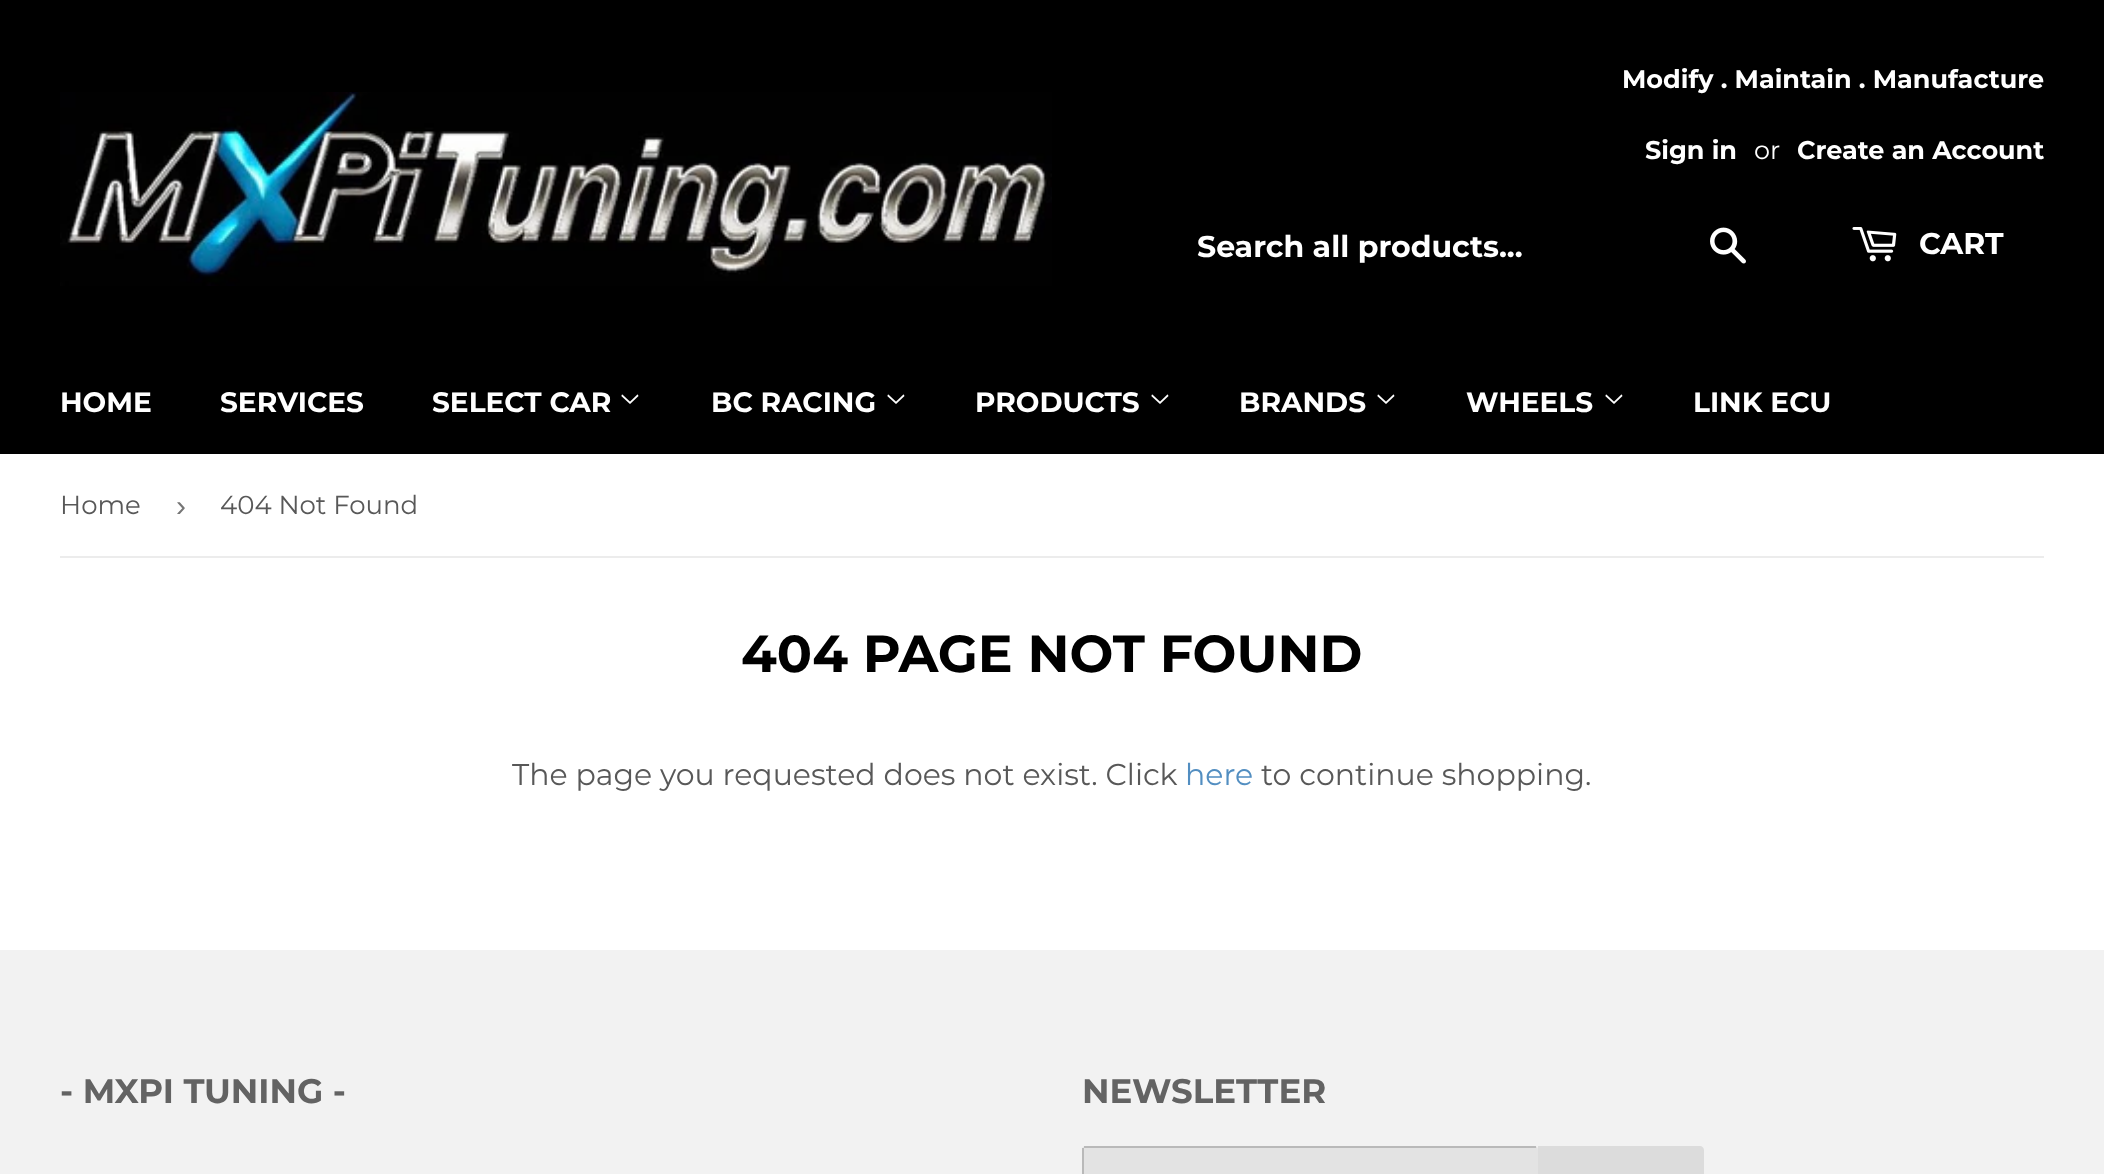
(async () => {
  const canvas = document.querySelector("canvas");
  canvas.width = 2104;
  canvas.height = 1174;
  const ctx = canvas.getContext("2d");
  ctx.miterLimit = 4;
  ctx.fontKerning = "normal";
  async function loadImage(src) {
    const img = new Image();
    img.src = src;
    await img.decode();
    return img;
  }
  let path;

  ctx.fillStyle = "#ffffff";
  ctx.fillRect(0, 0, 2104, 1174);
  ctx.fillStyle = "#000000";
  ctx.fillRect(0, 0, 2104, 454);
  ctx.drawImage(await loadImage("img/1.png"), 60, 92, 992, 194);
  ctx.drawImage(await loadImage("img/2.png"), 1710, 227, 36, 37);
  ctx.drawImage(await loadImage("img/3.png"), 1852, 227, 45, 35);
  ctx.drawImage(await loadImage("img/4.png"), 621, 394, 18, 10);
  ctx.drawImage(await loadImage("img/4.png"), 887, 394, 18, 10);
  ctx.drawImage(await loadImage("img/4.png"), 1151, 394, 18, 10);
  ctx.drawImage(await loadImage("img/4.png"), 1377, 394, 18, 10);
  ctx.drawImage(await loadImage("img/4.png"), 1605, 394, 18, 10);
  ctx.fillStyle = "#ececec";
  ctx.fillRect(60, 556, 1984, 2);
  ctx.fillStyle = "#f2f2f2";
  ctx.fillRect(0, 950, 2104, 224);
  ctx.fillStyle = "#e3e3e3";
  ctx.beginPath();
  ctx.roundRect(1082, 1146, 456, 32, 4);
  ctx.fill();
  ctx.fillStyle = "#b9b9b9";
  ctx.fillRect(1084, 1146, 452, 2);
  ctx.fillRect(1082, 1148, 2, 26);
  ctx.fillStyle = "#dcdcdc";
  path = new Path2D("M1538 1146H1700C1702 1146 1704 1148 1704 1150V1174C1704 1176 1702 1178 1700 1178H1538Z");
  ctx.fill(path);
  ctx.font = "bold 25.5px Montserrat";
  ctx.fillStyle = "#ffffff";
  ctx.fillText("Modify . Maintain . Manufacture", 1622, 88);
  ctx.fillText("Sign in", 1645, 159);
  ctx.font = "25.5px Montserrat";
  ctx.fillText("or", 1754, 159);
  ctx.font = "bold 25.5px Montserrat";
  ctx.fillText("Create an Account", 1797, 159);
  ctx.font = "bold 30px Montserrat";
  ctx.fillText("Search all products...", 1197, 257);
  ctx.fillText("CART", 1919, 254);
  ctx.font = "bold 28px Montserrat";
  for (const [text, x, y] of [
    ["HOME", 60, 412],
    ["SERVICES", 220, 412],
    ["SELECT CAR", 432, 412],
    ["BC RACING", 711, 412],
    ["PRODUCTS", 975, 412],
    ["BRANDS", 1239, 412],
    ["WHEELS", 1466, 412],
    ["LINK ECU", 1693, 412],
  ]) {
    ctx.fillText(text, x, y);
  }
  ctx.font = "26px Montserrat";
  ctx.fillStyle = "#585858";
  ctx.fillText("Home", 60, 514);
  ctx.font = "30px Liberation Sans";
  ctx.fillStyle = "#767676";
  ctx.fillText("›", 176, 516);
  ctx.font = "26px Montserrat";
  ctx.fillStyle = "#585858";
  ctx.fillText("404 Not Found", 220, 514);
  ctx.font = "bold 52px Montserrat";
  ctx.fillStyle = "#000000";
  ctx.fillText("404 PAGE NOT FOUND", 741, 672);
  ctx.font = "30px Montserrat";
  ctx.fillStyle = "#585858";
  ctx.fillText("The page you requested does not exist. Click", 512, 785);
  ctx.fillStyle = "#528ec1";
  ctx.fillText("here", 1185, 785);
  ctx.fillStyle = "#585858";
  ctx.fillText("to continue shopping.", 1261, 785);
  ctx.font = "bold 34px Montserrat";
  ctx.fillStyle = "#636363";
  ctx.fillText("- MXPI TUNING -", 60, 1103);
  ctx.fillText("NEWSLETTER", 1082, 1103);
})();
